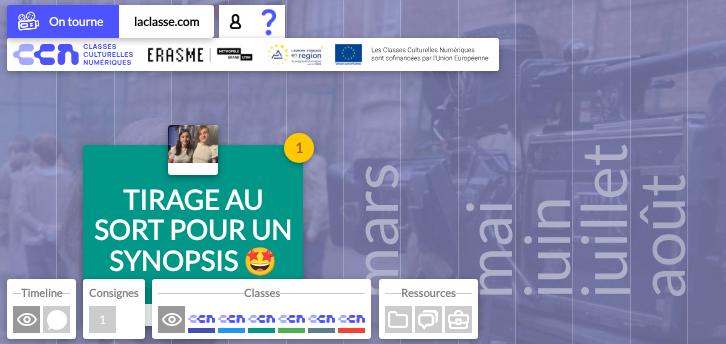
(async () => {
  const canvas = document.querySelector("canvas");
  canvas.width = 726;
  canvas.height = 344;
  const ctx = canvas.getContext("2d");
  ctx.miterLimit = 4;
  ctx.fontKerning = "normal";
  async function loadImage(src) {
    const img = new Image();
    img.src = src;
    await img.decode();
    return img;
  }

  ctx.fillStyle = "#ffffff";
  ctx.fillRect(0, 0, 726, 344);
  ctx.drawImage(await loadImage("img/8.png"), 0, 0, 726, 344);
  for (const [x, y, w, h, color] of [
    [172, 0, 57, 344, "rgba(0, 0, 0, 0.03)"],
    [228, 0, 1, 344, "rgba(255, 255, 255, 0.24)"],
    [286, 0, 1, 344, "rgba(255, 255, 255, 0.24)"],
    [287, 0, 57, 344, "rgba(0, 0, 0, 0.03)"],
  ]) {
    ctx.fillStyle = color;
    ctx.fillRect(x, y, w, h);
  }
  ctx.fillStyle = "rgba(0, 0, 0, 0.3)";
  ctx.filter = "blur(3.5px)";
  ctx.beginPath();
  ctx.roundRect(219, 7, 66, 33, 3);
  ctx.fill();
  ctx.filter = "none";
  ctx.fillStyle = "#ffffff";
  ctx.fillRect(219, 5, 66, 33);
  ctx.drawImage(await loadImage("img/2.png"), 229, 14, 13, 15);
  ctx.drawImage(await loadImage("img/3.png"), 261, 8, 16, 28);
  for (const [x, y, w, h, color] of [
    [56, 0, 1, 344, "rgba(255, 255, 255, 0.24)"],
    [57, 0, 58, 344, "rgba(0, 0, 0, 0.03)"],
    [114, 0, 1, 344, "rgba(255, 255, 255, 0.24)"],
    [171, 0, 1, 344, "rgba(255, 255, 255, 0.24)"],
    [343, 0, 1, 344, "rgba(255, 255, 255, 0.24)"],
    [400, 0, 1, 344, "rgba(255, 255, 255, 0.24)"],
    [401, 0, 58, 344, "rgba(0, 0, 0, 0.03)"],
    [458, 0, 1, 344, "rgba(255, 255, 255, 0.24)"],
  ]) {
    ctx.fillStyle = color;
    ctx.fillRect(x, y, w, h);
  }
  ctx.fillStyle = "rgba(0, 0, 0, 0.3)";
  ctx.filter = "blur(3.5px)";
  ctx.beginPath();
  ctx.roundRect(7, 40, 492, 33, 3);
  ctx.fill();
  ctx.filter = "none";
  ctx.fillStyle = "#ffffff";
  ctx.beginPath();
  ctx.roundRect(7, 38, 492, 33, 3);
  ctx.fill();
  ctx.beginPath();
  ctx.roundRect(7, 38, 132, 33, [3, 0, 0, 3]);
  ctx.fill();
  ctx.drawImage(await loadImage("img/4.png"), 13, 44, 120, 21);
  ctx.drawImage(await loadImage("img/5.png"), 148, 47, 105, 16);
  ctx.fillStyle = "rgba(0, 0, 0, 0.3)";
  ctx.filter = "blur(3.5px)";
  ctx.beginPath();
  ctx.roundRect(7, 7, 207, 33, 3);
  ctx.fill();
  ctx.filter = "none";
  ctx.fillStyle = "#4d54ff";
  ctx.beginPath();
  ctx.roundRect(7, 5, 112, 33, [3, 0, 0, 3]);
  ctx.fill();
  ctx.drawImage(await loadImage("img/1.png"), 18, 11, 22, 20);
  ctx.fillStyle = "#ffffff";
  ctx.beginPath();
  ctx.roundRect(119, 5, 95, 33, [0, 3, 3, 0]);
  ctx.fill();
  ctx.drawImage(await loadImage("img/6.png"), 268, 44, 55, 21);
  ctx.beginPath();
  ctx.roundRect(329, 38, 170, 33, [0, 3, 3, 0]);
  ctx.fill();
  ctx.drawImage(await loadImage("img/7.png"), 335, 44, 154, 21);
  ctx.fillStyle = "rgba(0, 0, 0, 0.3)";
  ctx.filter = "blur(3.5px)";
  ctx.beginPath();
  ctx.roundRect(83, 147, 220, 181, 3);
  ctx.fill();
  ctx.filter = "none";
  ctx.fillStyle = "#009688";
  ctx.beginPath();
  ctx.roundRect(83, 145, 220, 181, 3);
  ctx.fill();
  ctx.fillStyle = "rgba(0, 0, 0, 0.4)";
  ctx.filter = "blur(3.5px)";
  ctx.beginPath();
  ctx.roundRect(168, 127, 50, 50, 3);
  ctx.fill();
  ctx.filter = "none";
  ctx.fillStyle = "#ffffff";
  ctx.beginPath();
  ctx.roundRect(168, 125, 50, 50, 3);
  ctx.fill();
  ctx.drawImage(await loadImage("img/9.png"), 168, 125, 50, 38);
  ctx.fillStyle = "rgba(0, 0, 0, 0.3)";
  ctx.filter = "blur(2.5px)";
  ctx.beginPath();
  ctx.roundRect(284, 135, 30, 30, 15);
  ctx.fill();
  ctx.filter = "none";
  ctx.fillStyle = "#ffc800";
  ctx.beginPath();
  ctx.arc(299, 148, 15, 0, Math.PI * 2);
  ctx.fill();
  for (const [x, y, w, h, color] of [
    [145, 288, 7, 20, "#008c7e"],
    [145, 304, 7, 22, "rgba(255, 255, 255, 0.95)"],
    [515, 0, 1, 344, "rgba(255, 255, 255, 0.24)"],
    [516, 0, 57, 344, "rgba(0, 0, 0, 0.03)"],
    [572, 0, 1, 344, "rgba(255, 255, 255, 0.24)"],
    [630, 0, 1, 344, "rgba(255, 255, 255, 0.24)"],
    [631, 0, 57, 344, "rgba(0, 0, 0, 0.03)"],
    [687, 0, 1, 344, "rgba(255, 255, 255, 0.24)"],
  ]) {
    ctx.fillStyle = color;
    ctx.fillRect(x, y, w, h);
  }
  ctx.fillStyle = "rgba(0, 0, 0, 0.3)";
  ctx.filter = "blur(3.5px)";
  ctx.beginPath();
  ctx.roundRect(7, 281, 69, 60, 3);
  ctx.fill();
  ctx.filter = "none";
  ctx.fillStyle = "#ffffff";
  ctx.beginPath();
  ctx.roundRect(7, 279, 69, 60, 3);
  ctx.fill();
  for (const [x, y, w, h, color] of [
    [13, 293, 57, 1, "#cccccc"],
    [21, 293, 41, 1, "#ffffff"],
    [13, 306, 27, 27, "#999999"],
  ]) {
    ctx.fillStyle = color;
    ctx.fillRect(x, y, w, h);
  }
  ctx.drawImage(await loadImage("img/10.png"), 17, 313, 20, 13);
  ctx.fillStyle = "#cccccc";
  ctx.fillRect(43, 306, 27, 27);
  ctx.drawImage(await loadImage("img/11.png"), 47, 310, 20, 20);
  ctx.fillStyle = "rgba(0, 0, 0, 0.3)";
  ctx.filter = "blur(3.5px)";
  ctx.beginPath();
  ctx.roundRect(83, 281, 62, 60, 3);
  ctx.fill();
  ctx.filter = "none";
  ctx.fillStyle = "#ffffff";
  ctx.beginPath();
  ctx.roundRect(83, 279, 62, 60, 3);
  ctx.fill();
  ctx.fillStyle = "#cccccc";
  ctx.fillRect(89, 306, 27, 27);
  ctx.fillStyle = "rgba(0, 0, 0, 0.3)";
  ctx.filter = "blur(3.5px)";
  ctx.beginPath();
  ctx.roundRect(152, 281, 219, 60, 3);
  ctx.fill();
  ctx.filter = "none";
  ctx.font = "bold 12px Lato";
  ctx.fillStyle = "#ffffff";
  ctx.fillText("On tourne", 49, 26);
  ctx.fillStyle = "#000000";
  ctx.fillText("laclasse.com", 134, 26);
  ctx.font = "bold 14px Lato";
  ctx.fillStyle = "#ad5d14";
  ctx.fillText("1", 295, 153);
  ctx.font = "bold 27.5px Lato";
  ctx.fillStyle = "#ffffff";
  for (const [text, x, y] of [
    ["TIRAGE AU", 123, 210],
    ["SORT POUR UN", 94, 240],
    ["SYNOPSIS", 109, 271],
  ]) {
    ctx.fillText(text, x, y);
  }
  ctx.font = "bold 27.5px Noto Color Emoji";
  ctx.fillText("🤩", 243, 271);
  ctx.font = "63px Lato";
  ctx.fillStyle = "#aeafc9";
  ctx.save();
  ctx.translate(398, 299);
  ctx.rotate(-90 * Math.PI / 180);
  ctx.fillText("mars", 0, 0);
  ctx.restore();
  ctx.save();
  ctx.translate(512, 299);
  ctx.rotate(-90 * Math.PI / 180);
  ctx.fillText("mai", 0, 0);
  ctx.restore();
  ctx.save();
  ctx.beginPath();
  ctx.rect(516, 0, 56, 344);
  ctx.clip();
  ctx.save();
  ctx.translate(570, 299);
  ctx.rotate(-90 * Math.PI / 180);
  ctx.fillText("juin", 0, 0);
  ctx.restore();
  ctx.restore();
  ctx.save();
  ctx.beginPath();
  ctx.rect(573, 0, 57, 344);
  ctx.clip();
  ctx.save();
  ctx.translate(627, 299);
  ctx.rotate(-90 * Math.PI / 180);
  ctx.fillText("juillet", 0, 0);
  ctx.restore();
  ctx.restore();
  ctx.fillStyle = "#a8a9c3";
  ctx.save();
  ctx.translate(685, 299);
  ctx.rotate(-90 * Math.PI / 180);
  ctx.fillText("août", 0, 0);
  ctx.restore();
  ctx.font = "bold 11px Lato";
  ctx.fillStyle = "#868181";
  ctx.fillText("Timeline", 21, 297);
  ctx.fillText("Consignes", 89, 297);
  ctx.font = "12px Lato";
  ctx.fillStyle = "#ffffff";
  ctx.fillText("1", 99, 324);
  ctx.beginPath();
  ctx.roundRect(152, 279, 219, 60, 3);
  ctx.fill();
  ctx.fillStyle = "#cccccc";
  ctx.fillRect(158, 293, 207, 1);
  ctx.fillStyle = "#ffffff";
  ctx.fillRect(244, 293, 36, 1);
  ctx.font = "bold 11px Lato";
  ctx.fillStyle = "#868181";
  ctx.fillText("Classes", 244, 297);
  ctx.fillStyle = "#999999";
  ctx.fillRect(158, 306, 27, 27);
  ctx.drawImage(await loadImage("img/10.png"), 162, 313, 20, 13);
  ctx.drawImage(await loadImage("img/12.png"), 188, 315, 27, 8);
  ctx.fillStyle = "#3f51b5";
  ctx.fillRect(188, 328, 27, 5);
  ctx.drawImage(await loadImage("img/13.png"), 218, 315, 27, 8);
  ctx.fillStyle = "#2196f3";
  ctx.fillRect(218, 328, 27, 5);
  ctx.drawImage(await loadImage("img/13.png"), 248, 315, 27, 8);
  ctx.fillStyle = "#009688";
  ctx.fillRect(248, 328, 27, 5);
  ctx.drawImage(await loadImage("img/13.png"), 278, 315, 27, 8);
  ctx.fillStyle = "#4caf50";
  ctx.fillRect(278, 328, 27, 5);
  ctx.drawImage(await loadImage("img/13.png"), 308, 315, 27, 8);
  ctx.fillStyle = "#607d8b";
  ctx.fillRect(308, 328, 27, 5);
  ctx.drawImage(await loadImage("img/13.png"), 338, 315, 27, 8);
  ctx.fillStyle = "#f44336";
  ctx.fillRect(338, 328, 27, 5);
  ctx.fillStyle = "rgba(0, 0, 0, 0.3)";
  ctx.filter = "blur(3.5px)";
  ctx.beginPath();
  ctx.roundRect(379, 281, 99, 60, 3);
  ctx.fill();
  ctx.filter = "none";
  ctx.fillStyle = "#ffffff";
  ctx.beginPath();
  ctx.roundRect(379, 279, 99, 60, 3);
  ctx.fill();
  ctx.fillStyle = "#cccccc";
  ctx.fillRect(385, 293, 87, 1);
  ctx.fillStyle = "#ffffff";
  ctx.fillRect(401, 293, 55, 1);
  ctx.fillStyle = "#868181";
  ctx.fillText("Ressources", 401, 297);
  ctx.fillStyle = "#cccccc";
  ctx.fillRect(385, 306, 27, 27);
  ctx.drawImage(await loadImage("img/14.png"), 388, 311, 20, 17);
  ctx.fillRect(415, 306, 27, 27);
  ctx.drawImage(await loadImage("img/15.png"), 418, 310, 20, 20);
  ctx.fillRect(445, 306, 27, 27);
  ctx.drawImage(await loadImage("img/16.png"), 448, 310, 21, 19);
})();
